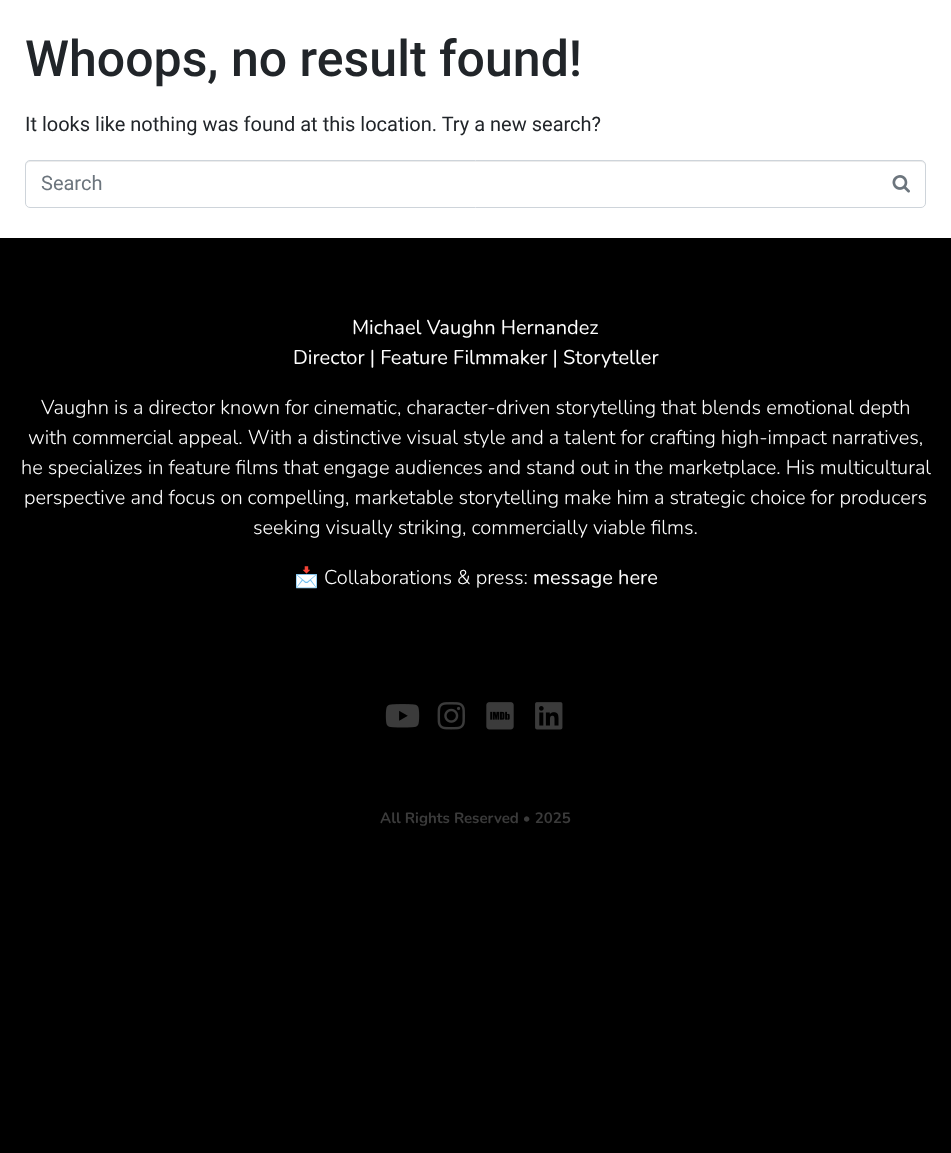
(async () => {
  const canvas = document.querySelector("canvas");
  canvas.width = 951;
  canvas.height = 1153;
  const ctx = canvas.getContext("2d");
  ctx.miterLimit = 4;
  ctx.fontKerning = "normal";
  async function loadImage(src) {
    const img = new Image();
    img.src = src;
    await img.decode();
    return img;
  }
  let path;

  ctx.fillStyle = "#000000";
  ctx.fillRect(0, 0, 951, 1153);
  ctx.fillStyle = "#ffffff";
  ctx.fillRect(0, 0, 951, 238);
  ctx.fillStyle = "#ececec";
  path = new Path2D("M30 162H921C923 162 925 164 925 166C925 163 924 161 921 161H30C27 161 26 163 26 166C26 164 28 162 30 162Z");
  ctx.fill(path);
  ctx.beginPath();
  ctx.roundRect(25.5, 160.5, 900, 47, 4.5);
  ctx.strokeStyle = "#ced4da";
  ctx.stroke();
  ctx.drawImage(await loadImage("img/1.png"), 892, 175, 18, 18);
  ctx.drawImage(await loadImage("img/2.png"), 385, 704, 35, 24);
  ctx.drawImage(await loadImage("img/3.png"), 437, 702, 28, 28);
  ctx.drawImage(await loadImage("img/4.png"), 486, 702, 28, 28);
  ctx.drawImage(await loadImage("img/5.png"), 535, 702, 28, 28);
  ctx.font = "500 50px Roboto";
  ctx.fillStyle = "#212529";
  ctx.fillText("Whoops, no result found!", 25, 76);
  ctx.font = "20px Roboto";
  ctx.fillText("It looks like nothing was found at this location. Try a new search?", 25, 131);
  ctx.fillStyle = "#6c757d";
  ctx.fillText("Search", 41, 190);
  ctx.font = "20px Nunito";
  ctx.fillStyle = "#ffffff";
  ctx.fillText("Michael Vaughn Hernandez", 352, 334);
  ctx.fillText("Director | Feature Filmmaker | Storyteller", 293, 364);
  ctx.font = "300 20px Nunito";
  for (const [text, x, y] of [
    ["Vaughn is a director known for cinematic, character-driven storytelling that blends emotional depth", 41, 414],
    ["with commercial appeal. With a distinctive visual style and a talent for crafting high-impact narratives,", 28, 444],
    ["he specializes in feature films that engage audiences and stand out in the marketplace. His multicultural", 21, 474],
    ["perspective and focus on compelling, marketable storytelling make him a strategic choice for producers", 24, 504],
    ["seeking visually striking, commercially viable films.", 253, 534],
  ]) {
    ctx.fillText(text, x, y);
  }
  ctx.font = "20px Noto Color Emoji";
  ctx.fillText("📩", 294, 584);
  ctx.font = "300 20px Nunito";
  ctx.fillText("Collaborations & press:", 324, 584);
  ctx.font = "20px Nunito";
  ctx.fillText("message here", 533, 584);
  ctx.font = "bold 15px Nunito";
  ctx.fillStyle = "#3b3b3b";
  ctx.fillText("All Rights Reserved • 2025", 380, 823);
})();
